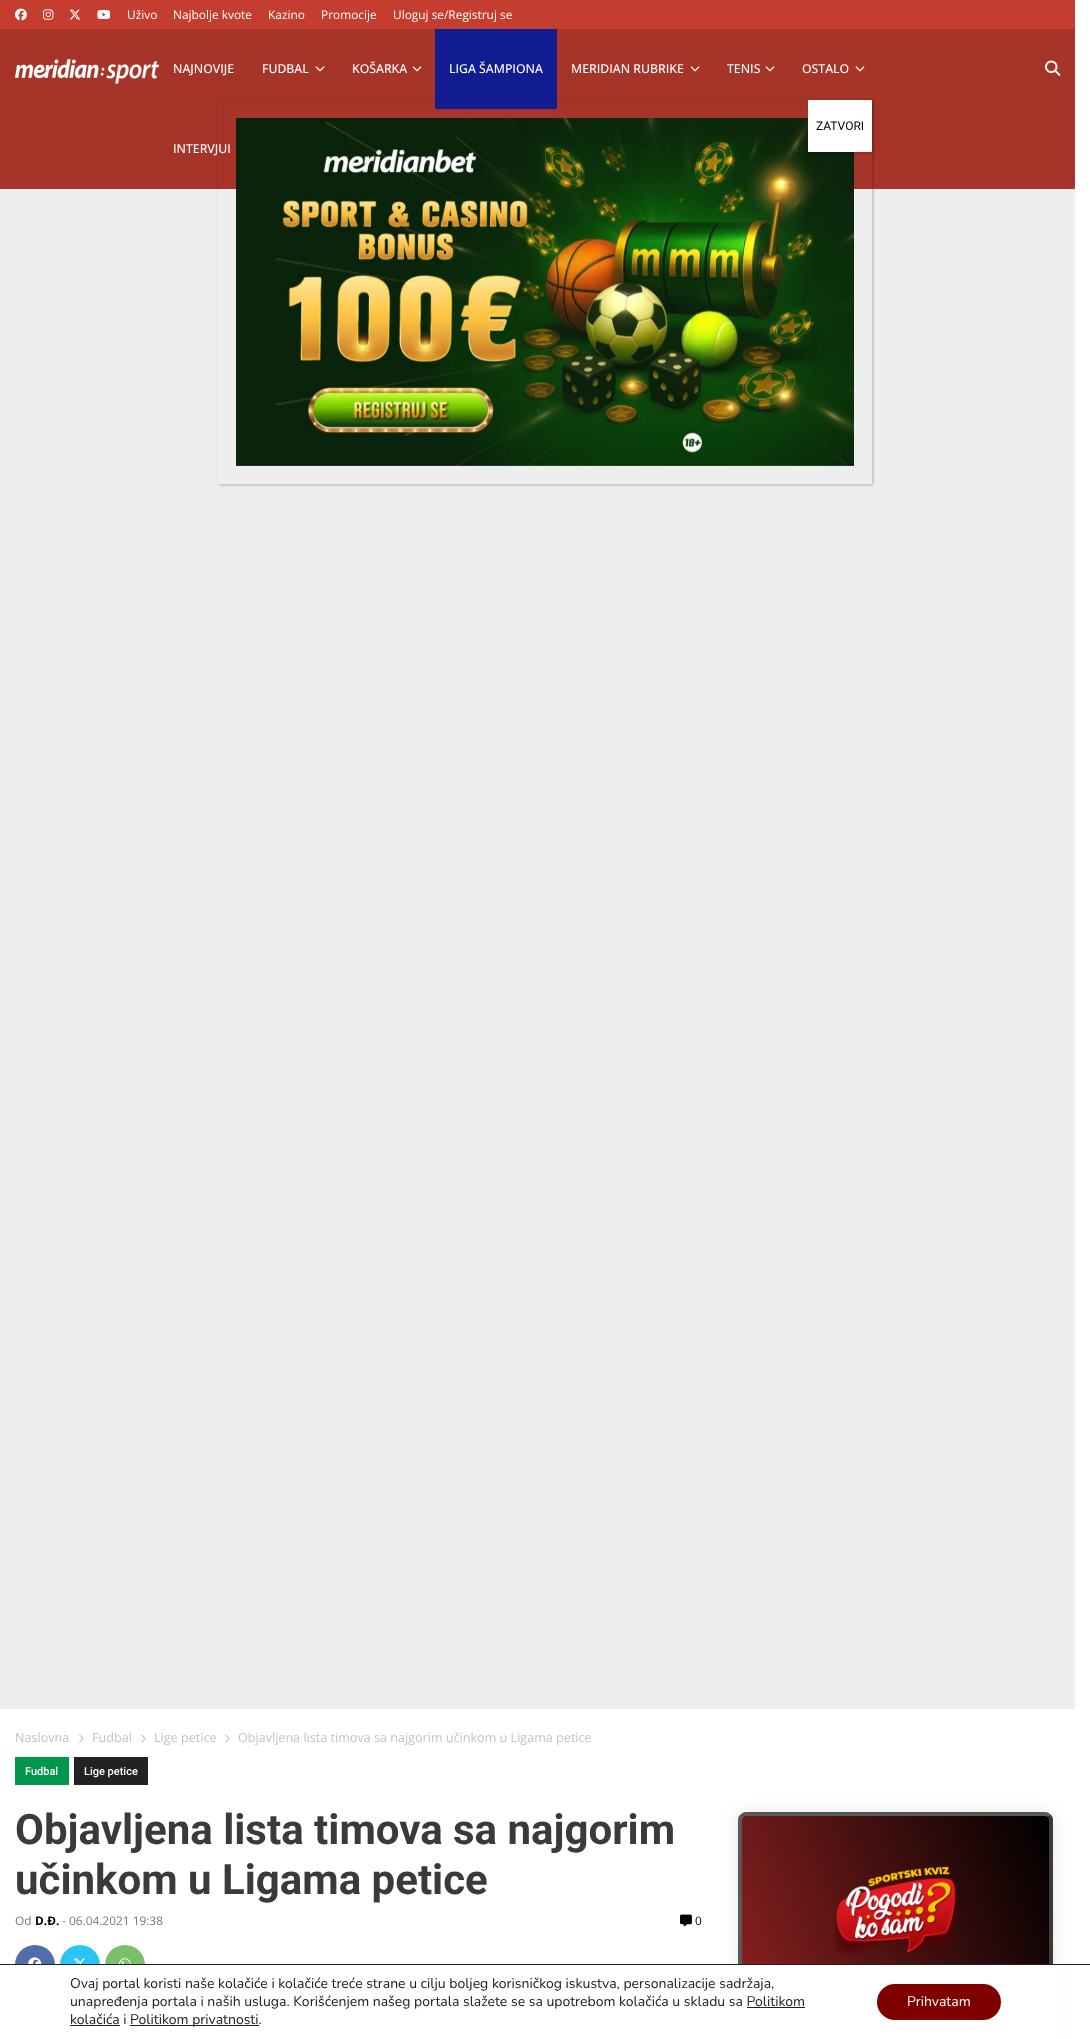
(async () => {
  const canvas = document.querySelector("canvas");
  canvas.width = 1090;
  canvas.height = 2039;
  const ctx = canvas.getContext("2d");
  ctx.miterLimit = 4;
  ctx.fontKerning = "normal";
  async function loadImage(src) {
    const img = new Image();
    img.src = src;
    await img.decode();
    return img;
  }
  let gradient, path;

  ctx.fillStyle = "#ffffff";
  ctx.fillRect(0, 0, 1090, 2039);
  ctx.fillStyle = "#c43d2f";
  ctx.fillRect(0, 0, 1075, 29);
  ctx.drawImage(await loadImage("img/1.png"), 15, 8, 12, 13);
  ctx.drawImage(await loadImage("img/2.png"), 43, 9, 11, 11);
  ctx.drawImage(await loadImage("img/3.png"), 69, 9, 12, 11);
  ctx.drawImage(await loadImage("img/4.png"), 97, 10, 14, 9);
  ctx.fillStyle = "#a73428";
  ctx.fillRect(0, 29, 1075, 160);
  ctx.drawImage(await loadImage("img/5.png"), 15, 59, 144, 25);
  ctx.drawImage(await loadImage("img/6.png"), 315, 66, 10, 6);
  ctx.drawImage(await loadImage("img/6.png"), 412, 66, 10, 6);
  ctx.fillStyle = "#111c90";
  ctx.fillRect(435, 29, 122, 80);
  ctx.drawImage(await loadImage("img/6.png"), 690, 66, 10, 6);
  ctx.drawImage(await loadImage("img/6.png"), 765, 66, 10, 6);
  ctx.drawImage(await loadImage("img/6.png"), 855, 66, 10, 6);
  ctx.drawImage(await loadImage("img/7.png"), 1045, 60, 16, 16);
  ctx.fillStyle = "#eeeeee";
  ctx.fillRect(0, 189, 1075, 1520);
  ctx.drawImage(await loadImage("img/8.png"), 79, 1734, 5, 9);
  ctx.drawImage(await loadImage("img/8.png"), 141, 1734, 5, 9);
  ctx.drawImage(await loadImage("img/8.png"), 225, 1734, 5, 9);
  ctx.fillStyle = "#00964c";
  ctx.fillRect(15, 1757, 54, 28);
  ctx.fillStyle = "#222222";
  ctx.fillRect(74, 1757, 74, 28);
  ctx.drawImage(await loadImage("img/9.png"), 680, 1914, 12, 13);
  ctx.fillStyle = "#516eab";
  ctx.beginPath();
  ctx.arc(35, 1965, 20, 0, Math.PI * 2);
  ctx.fill();
  ctx.drawImage(await loadImage("img/10.png"), 28, 1957, 14, 7);
  ctx.fillStyle = "#29c5f6";
  ctx.beginPath();
  ctx.arc(80, 1965, 20, 0, Math.PI * 2);
  ctx.fill();
  ctx.drawImage(await loadImage("img/11.png"), 73, 1958, 12, 6);
  ctx.fillStyle = "#7bbf6a";
  ctx.beginPath();
  ctx.arc(125, 1965, 20, 0, Math.PI * 2);
  ctx.fill();
  ctx.drawImage(await loadImage("img/12.png"), 119, 1958, 12, 6);
  ctx.fillStyle = "rgba(201, 201, 201, 0.4)";
  ctx.filter = "blur(7.5px)";
  ctx.beginPath();
  ctx.roundRect(737, 1811, 317, 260, 9);
  ctx.fill();
  ctx.filter = "none";
  ctx.fillStyle = "#ffffff";
  ctx.beginPath();
  ctx.roundRect(738, 1812, 315, 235, 8);
  ctx.fill();
  gradient = ctx.createLinearGradient(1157, 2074, 634, 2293);
  gradient.addColorStop(0, "#000000");
  gradient.addColorStop(1, "#dd3333");
  ctx.fillStyle = gradient;
  ctx.fillRect(742, 1816, 307, 148);
  path = new Path2D("M1049 1816C1050.5 1817 1051 1818.5 1051 1820V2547C1051 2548.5 1050.5 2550 1049 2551C1048 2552.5 1046.5 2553 1045 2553H746C744.5 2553 743 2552.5 742 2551");
  ctx.strokeStyle = "#3b3b3b";
  ctx.lineWidth = 4;
  ctx.stroke(path);
  path = new Path2D("M742 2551C740.5 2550 740 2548.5 740 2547V1820C740 1818.5 740.5 1817 742 1816C743 1814.5 744.5 1814 746 1814H1045C1046.5 1814 1048 1814.5 1049 1816");
  ctx.strokeStyle = "#595959";
  ctx.stroke(path);
  ctx.drawImage(await loadImage("img/13.png"), 834, 1866, 126, 89);
  ctx.save();
  path = new Path2D("M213 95H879V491H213ZM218 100H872V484H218Z");
  ctx.clip(path, "evenodd");
  ctx.fillStyle = "rgba(2, 2, 2, 0.25)";
  ctx.filter = "blur(1.5px)";
  ctx.beginPath();
  ctx.rect(219, 101, 654, 384);
  ctx.fill();
  ctx.filter = "none";
  ctx.restore();
  ctx.drawImage(await loadImage("img/14.png"), 236, 118, 618, 348);
  ctx.fillStyle = "rgba(2, 2, 2, 0.23)";
  ctx.filter = "blur(1.5px)";
  ctx.beginPath();
  ctx.rect(809, 101, 64, 52);
  ctx.fill();
  ctx.filter = "none";
  for (const [x, y, w, h, color] of [
    [808, 100, 64, 52, "#ffffff"],
    [15, 1965, 1048, 74, "#ffffff"],
    [0, 1964, 1090, 1, "#202020"],
    [747, 2007, 58, 1, "#202020"],
    [70, 2025, 50, 1, "#202020"],
    [130, 2025, 129, 1, "#202020"],
  ]) {
    ctx.fillStyle = color;
    ctx.fillRect(x, y, w, h);
  }
  ctx.fillStyle = "#800000";
  ctx.beginPath();
  ctx.roundRect(877, 1984, 124, 36, 18);
  ctx.fill();
  ctx.font = "11.9px Open Sans";
  ctx.fillStyle = "#ffffff";
  for (const [text, x, y] of [
    ["Uživo", 127, 19],
    ["Najbolje kvote", 173, 19],
    ["Kazino", 268, 19],
    ["Promocije", 321, 19],
    ["Uloguj se/Registruj se", 393, 19],
  ]) {
    ctx.fillText(text, x, y);
  }
  ctx.font = "500 12.25px Open Sans";
  for (const [text, x, y] of [
    ["NAJNOVIJE", 173, 73],
    ["FUDBAL", 262, 73],
    ["KOŠARKA", 352, 73],
    ["LIGA ŠAMPIONA", 449, 73],
    ["MERIDIAN RUBRIKE", 571, 73],
    ["TENIS", 727, 73],
    ["OSTALO", 802, 73],
    ["INTERVJUI", 173, 153],
  ]) {
    ctx.fillText(text, x, y);
  }
  ctx.font = "12.6px Open Sans";
  ctx.fillStyle = "#c3c3c3";
  for (const [text, x, y] of [
    ["Naslovna", 15, 1742],
    ["Fudbal", 92, 1742],
    ["Lige petice", 154, 1742],
    ["Objavljena lista timova sa najgorim učinkom u Ligama petice", 238, 1742],
  ]) {
    ctx.fillText(text, x, y);
  }
  ctx.font = "500 11px Roboto";
  ctx.fillStyle = "#ffffff";
  ctx.fillText("Fudbal", 25, 1775);
  ctx.fillText("Lige petice", 84, 1775);
  ctx.font = "bold 42px Roboto";
  ctx.fillStyle = "#3a3a3a";
  ctx.fillText("Objavljena lista timova sa najgorim", 15, 1844);
  ctx.fillText("učinkom u Ligama petice", 15, 1894);
  ctx.font = "11.9px Open Sans";
  ctx.fillStyle = "#767676";
  ctx.fillText("Od", 15, 1925);
  ctx.font = "bold 11.9px Open Sans";
  ctx.fillStyle = "#000000";
  ctx.fillText("D.Đ.", 35, 1925);
  ctx.font = "11.9px Open Sans";
  ctx.fillStyle = "#767676";
  ctx.fillText("- 06.04.2021 19:38", 62, 1925);
  ctx.fillStyle = "#000000";
  ctx.fillText("0", 695, 1925);
  ctx.font = "12px Roboto";
  ctx.fillText("ZATVORI", 816, 130);
  ctx.font = "14px Nunito";
  ctx.fillStyle = "#202020";
  for (const [text, x, y] of [
    ["Ovaj portal koristi naše kolačiće i kolačiće treće strane u cilju boljeg korisničkog iskustva, personalizacije sadržaja,", 70, 1988],
    ["unapređenja portala i naših usluga. Korišćenjem našeg portala slažete se sa upotrebom kolačića u skladu sa Politikom", 70, 2006],
    ["kolačića i", 70, 2024],
    ["Politikom privatnosti.", 130, 2024],
  ]) {
    ctx.fillText(text, x, y);
  }
  ctx.fillStyle = "#ffffff";
  ctx.fillText("Prihvatam", 907, 2006);
})();
